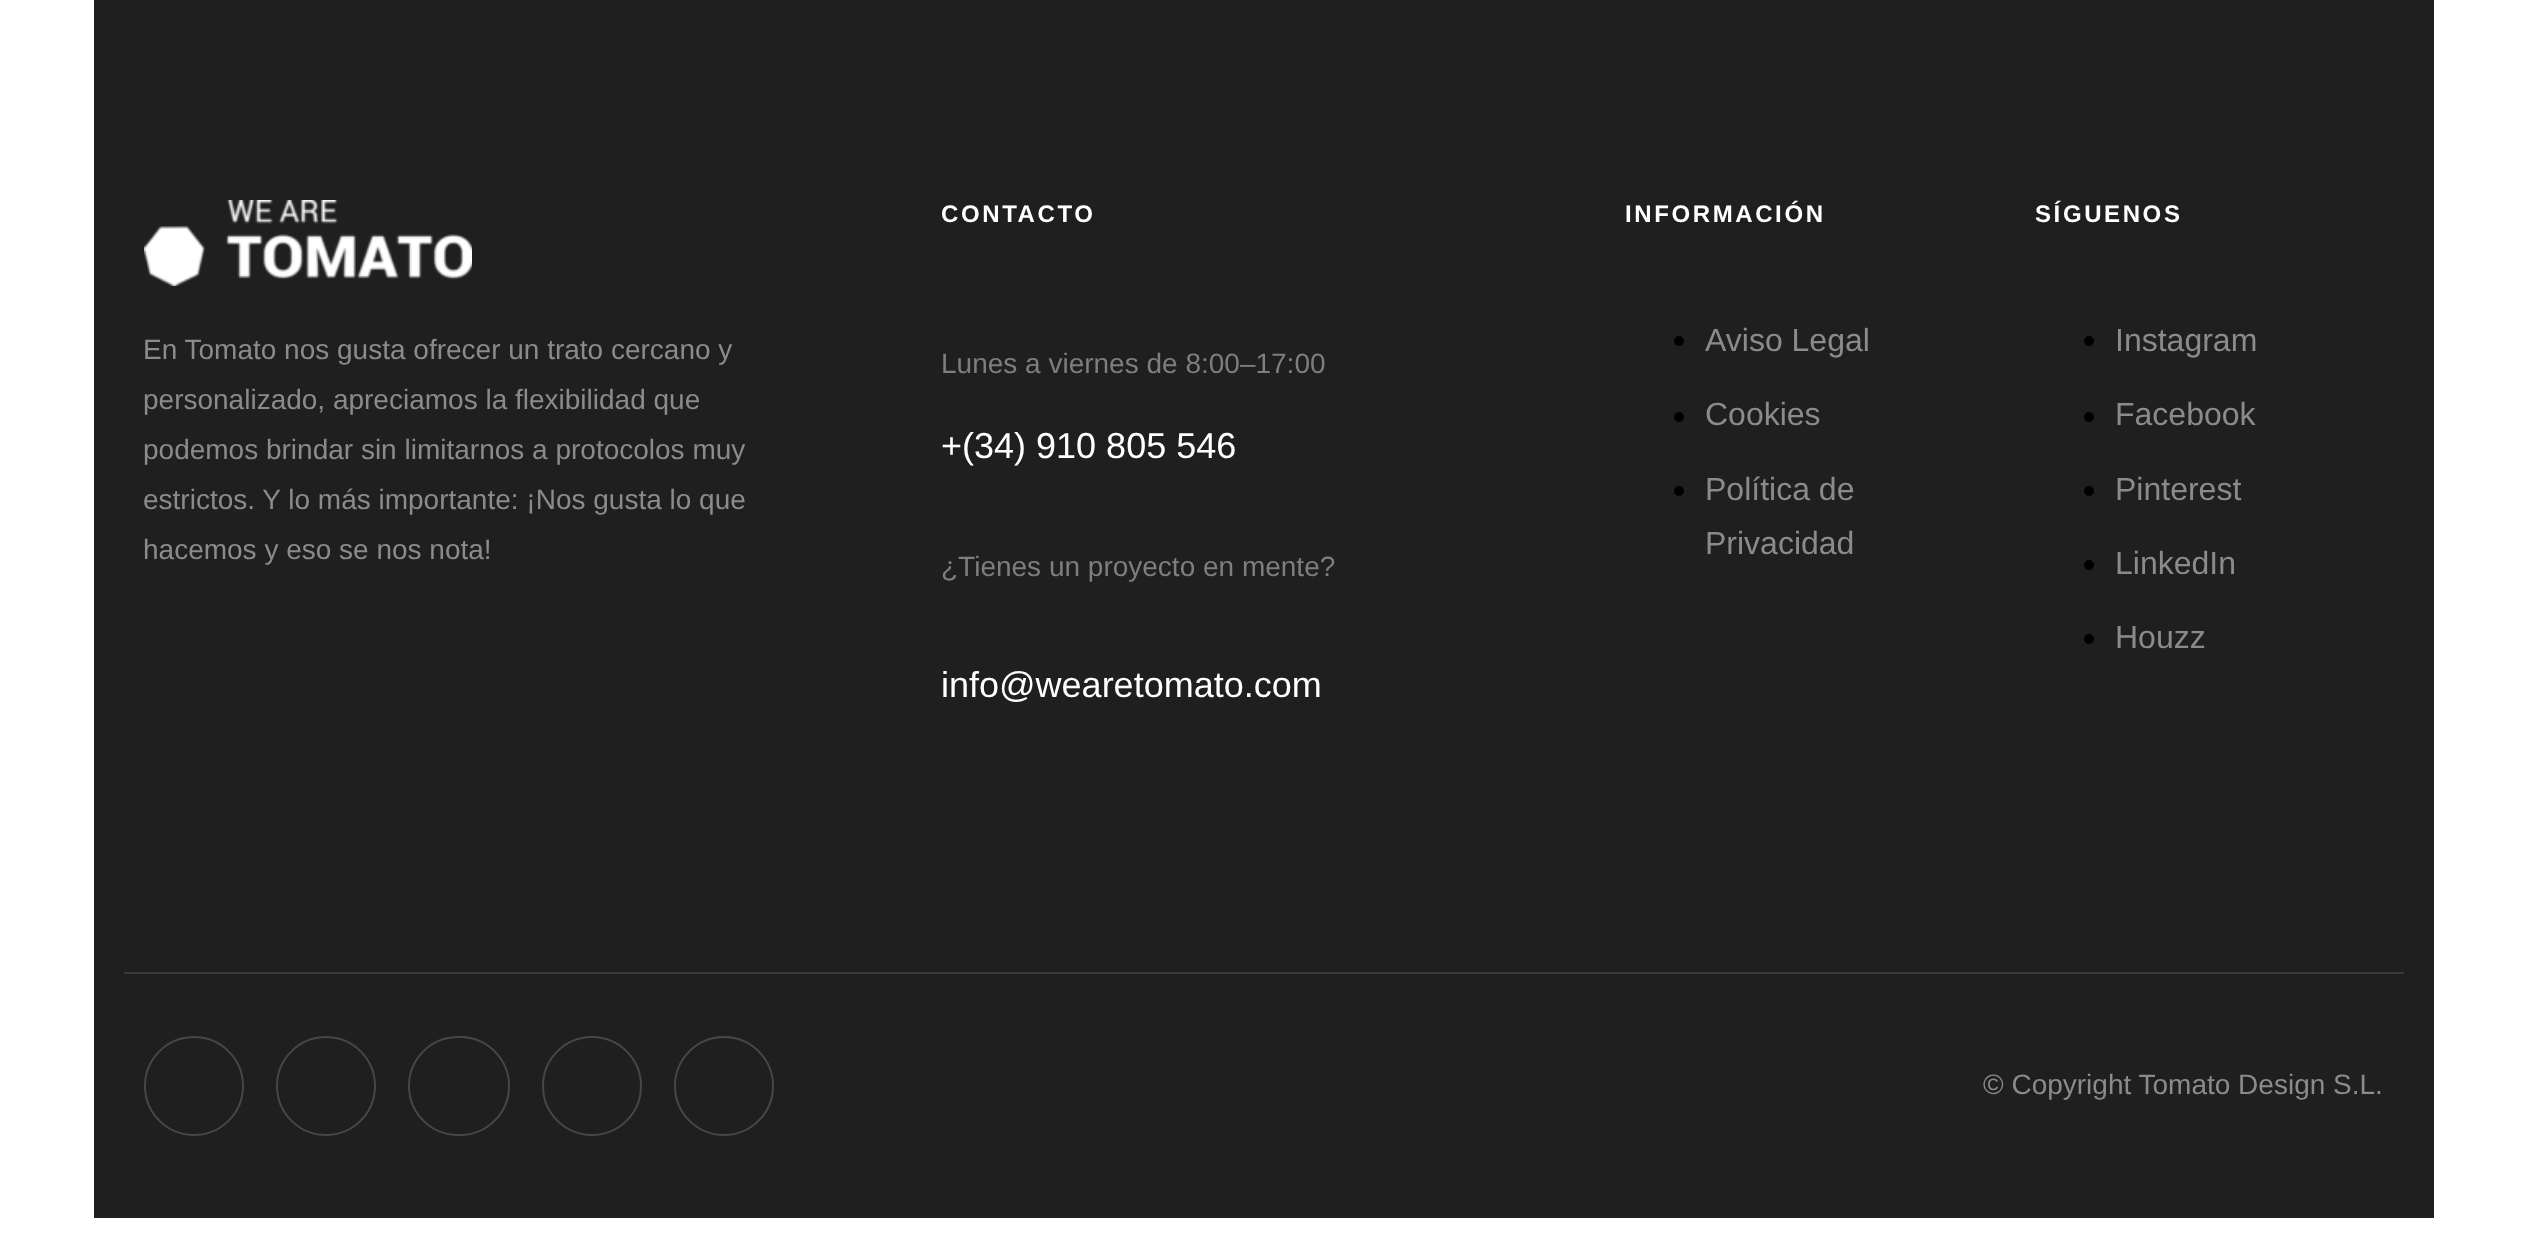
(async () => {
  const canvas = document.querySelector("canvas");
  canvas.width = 2526;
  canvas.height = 1257;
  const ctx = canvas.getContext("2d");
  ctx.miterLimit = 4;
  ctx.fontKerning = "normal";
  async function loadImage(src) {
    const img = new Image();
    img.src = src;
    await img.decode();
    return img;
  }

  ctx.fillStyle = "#ffffff";
  ctx.fillRect(0, 0, 2526, 1257);
  ctx.fillStyle = "#1f1f1f";
  ctx.fillRect(94, 0, 2340, 1218);
  ctx.drawImage(await loadImage("img/1.png"), 144, 200, 328, 86);
  ctx.fillStyle = "#000000";
  ctx.beginPath();
  ctx.arc(1679, 341, 5, 0, Math.PI * 2);
  ctx.fill();
  ctx.beginPath();
  ctx.arc(1679, 417, 5, 0, Math.PI * 2);
  ctx.fill();
  ctx.beginPath();
  ctx.arc(1679, 491, 5, 0, Math.PI * 2);
  ctx.fill();
  ctx.beginPath();
  ctx.arc(2089, 341, 5, 0, Math.PI * 2);
  ctx.fill();
  ctx.beginPath();
  ctx.arc(2089, 417, 5, 0, Math.PI * 2);
  ctx.fill();
  ctx.beginPath();
  ctx.arc(2089, 491, 5, 0, Math.PI * 2);
  ctx.fill();
  ctx.beginPath();
  ctx.arc(2089, 565, 5, 0, Math.PI * 2);
  ctx.fill();
  ctx.beginPath();
  ctx.arc(2089, 639, 5, 0, Math.PI * 2);
  ctx.fill();
  ctx.fillStyle = "#3a3a3a";
  ctx.fillRect(124, 972, 2280, 2);
  ctx.beginPath();
  ctx.arc(194, 1086, 49, 0, Math.PI * 2);
  ctx.strokeStyle = "#474747";
  ctx.lineWidth = 2;
  ctx.stroke();
  ctx.beginPath();
  ctx.arc(326, 1086, 49, 0, Math.PI * 2);
  ctx.stroke();
  ctx.beginPath();
  ctx.roundRect(409, 1037, 100, 98, 49);
  ctx.stroke();
  ctx.beginPath();
  ctx.arc(592, 1086, 49, 0, Math.PI * 2);
  ctx.stroke();
  ctx.beginPath();
  ctx.arc(724, 1086, 49, 0, Math.PI * 2);
  ctx.stroke();
  ctx.font = "28px Liberation Sans";
  ctx.fillStyle = "#8b8b8b";
  for (const [text, x, y] of [
    ["En Tomato nos gusta ofrecer un trato cercano y", 143, 359],
    ["personalizado, apreciamos la flexibilidad que", 143, 409],
    ["podemos brindar sin limitarnos a protocolos muy", 143, 459],
    ["estrictos. Y lo más importante: ¡Nos gusta lo que", 143, 509],
    ["hacemos y eso se nos nota!", 143, 559],
  ]) {
    ctx.fillText(text, x, y);
  }
  ctx.letterSpacing = "2.6px";
  ctx.font = "bold 24px Liberation Sans";
  ctx.fillStyle = "#ffffff";
  ctx.fillText("CONTACTO", 941, 222);
  ctx.letterSpacing = "0px";
  ctx.font = "28px Liberation Sans";
  ctx.fillStyle = "#7f7d7d";
  ctx.fillText("Lunes a viernes de 8:00–17:00", 941, 373);
  ctx.font = "36px Liberation Sans";
  ctx.fillStyle = "#ffffff";
  ctx.fillText("+(34) 910 805 546", 941, 458);
  ctx.font = "28px Liberation Sans";
  ctx.fillStyle = "#7f7d7d";
  ctx.fillText("¿Tienes un proyecto en mente?", 941, 576);
  ctx.font = "36px Liberation Sans";
  ctx.fillStyle = "#ffffff";
  ctx.fillText("info@wearetomato.com", 941, 697);
  ctx.letterSpacing = "2.6px";
  ctx.font = "bold 24px Liberation Sans";
  ctx.fillText("INFORMACIÓN", 1625, 222);
  ctx.letterSpacing = "0px";
  ctx.font = "32px Liberation Sans";
  ctx.fillStyle = "#8b8b8b";
  for (const [text, x, y] of [
    ["Aviso Legal", 1705, 351],
    ["Cookies", 1705, 425],
    ["Política de", 1705, 500],
    ["Privacidad", 1705, 554],
  ]) {
    ctx.fillText(text, x, y);
  }
  ctx.letterSpacing = "2.6px";
  ctx.font = "bold 24px Liberation Sans";
  ctx.fillStyle = "#ffffff";
  ctx.fillText("SÍGUENOS", 2035, 222);
  ctx.letterSpacing = "0px";
  ctx.font = "32px Liberation Sans";
  ctx.fillStyle = "#8b8b8b";
  for (const [text, x, y] of [
    ["Instagram", 2115, 351],
    ["Facebook", 2115, 425],
    ["Pinterest", 2115, 500],
    ["LinkedIn", 2115, 574],
    ["Houzz", 2115, 648],
  ]) {
    ctx.fillText(text, x, y);
  }
  ctx.font = "28px Liberation Sans";
  ctx.fillText("© Copyright Tomato Design S.L.", 1983, 1094);
})();
